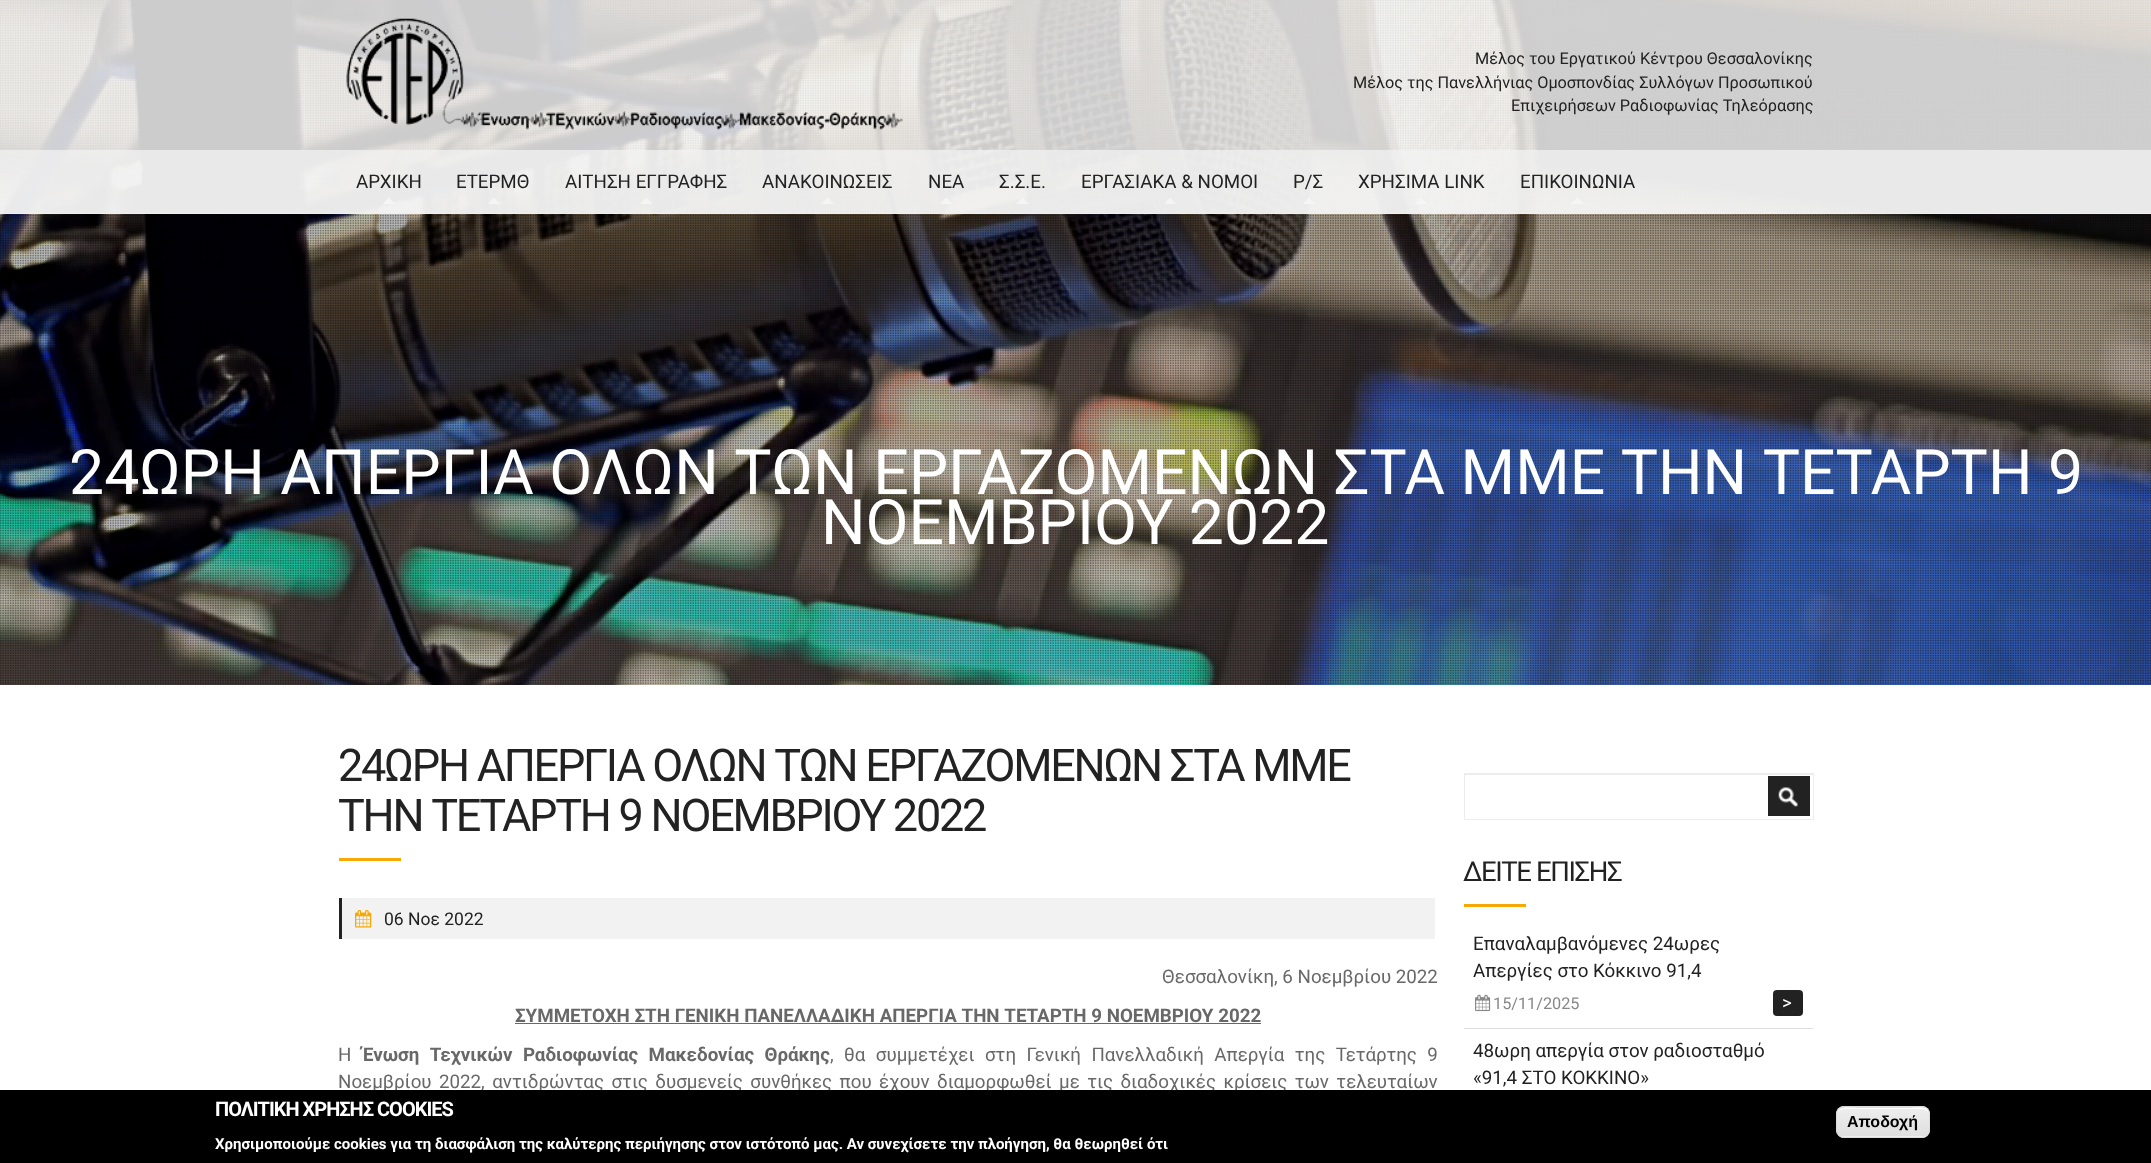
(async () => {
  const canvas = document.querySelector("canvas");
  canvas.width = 2151;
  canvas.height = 1163;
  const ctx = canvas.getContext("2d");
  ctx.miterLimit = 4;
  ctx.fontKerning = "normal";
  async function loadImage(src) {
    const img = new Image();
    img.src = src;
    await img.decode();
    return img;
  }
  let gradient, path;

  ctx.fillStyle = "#ffffff";
  ctx.fillRect(0, 0, 2151, 1163);
  ctx.drawImage(await loadImage("img/2.png"), 0, 0, 2151, 685);
  ctx.drawImage(await loadImage("img/3.png"), 0, 0, 2151, 685);
  ctx.fillStyle = "#efefef";
  ctx.fillRect(0, 213, 2151, 1);
  ctx.fillStyle = "rgba(255, 255, 255, 0.8)";
  ctx.fillRect(0, 0, 2151, 150);
  ctx.drawImage(await loadImage("img/1.png"), 346, 18, 557, 113);
  ctx.fillStyle = "rgba(245, 245, 245, 0.95)";
  ctx.fillRect(0, 150, 2151, 63);
  path = new Path2D("M395 204H382.5L389 197.5Z");
  ctx.fill(path);
  path = new Path2D("M500 204H487.5L494 197.5Z");
  ctx.fill(path);
  ctx.fillStyle = "#f5f5f5";
  path = new Path2D("M652.5 204H640L646 197.5Z");
  ctx.fill(path);
  ctx.fillStyle = "#f5f5f4";
  path = new Path2D("M834 204H821L827.5 197.5Z");
  ctx.fill(path);
  ctx.fillStyle = "rgba(245, 245, 245, 0.95)";
  path = new Path2D("M952.5 204H940L946 197.5Z");
  ctx.fill(path);
  path = new Path2D("M1029 204H1016L1022.5 197.5Z");
  ctx.fill(path);
  ctx.fillStyle = "#f4f4f4";
  path = new Path2D("M1176 204H1164L1170 197.5Z");
  ctx.fill(path);
  ctx.fillStyle = "rgba(245, 245, 245, 0.95)";
  path = new Path2D("M1315 204H1302.5L1309 197.5Z");
  ctx.fill(path);
  path = new Path2D("M1427.5 204H1415L1421 197.5Z");
  ctx.fill(path);
  path = new Path2D("M1584 204H1571L1577.5 197.5Z");
  ctx.fill(path);
  for (const [x, y, w, h, color] of [
    [339, 858, 62, 3, "#f7a805"],
    [342, 898, 1093, 41, "#f2f2f2"],
    [339, 898, 3, 41, "#222222"],
  ]) {
    ctx.fillStyle = color;
    ctx.fillRect(x, y, w, h);
  }
  ctx.drawImage(await loadImage("img/4.png"), 355, 910, 17, 18);
  ctx.fillStyle = "#686868";
  ctx.fillRect(515, 1023, 746, 1);
  ctx.fillStyle = "#ececec";
  ctx.fillRect(1465, 774, 348, 1);
  ctx.strokeStyle = "#ededed";
  ctx.strokeRect(1464.5, 773.5, 349, 46);
  ctx.fillStyle = "#222222";
  ctx.fillRect(1768, 776, 42, 40);
  ctx.drawImage(await loadImage("img/5.png"), 1778, 787, 20, 20);
  ctx.fillStyle = "#f7a805";
  ctx.fillRect(1464, 904, 62, 3);
  ctx.fillStyle = "#dddddd";
  ctx.fillRect(1464, 1028, 349, 1);
  ctx.drawImage(await loadImage("img/6.png"), 1475, 994, 16, 18);
  ctx.fillStyle = "#222222";
  ctx.beginPath();
  ctx.roundRect(1773, 990, 30, 26, 4);
  ctx.fill();
  ctx.font = "16.25px Roboto";
  for (const [text, x, y] of [
    ["Μέλος του Εργατικού Κέντρου Θεσσαλονίκης", 1475, 64],
    ["Μέλος της Πανελλήνιας Ομοσπονδίας Συλλόγων Προσωπικού", 1353, 88],
    ["Επιχειρήσεων Ραδιοφωνίας Τηλεόρασης", 1511, 111],
  ]) {
    ctx.fillText(text, x, y);
  }
  ctx.font = "18.75px Roboto";
  for (const [text, x, y] of [
    ["ΑΡΧΙΚΗ", 356, 188],
    ["ΕΤΕΡΜΘ", 456, 188],
    ["ΑΙΤΗΣΗ ΕΓΓΡΑΦΗΣ", 565, 188],
    ["ΑΝΑΚΟΙΝΩΣΕΙΣ", 762, 188],
    ["ΝΕΑ", 928, 188],
    ["Σ.Σ.Ε.", 999, 188],
    ["ΕΡΓΑΣΙΑΚΑ & ΝΟΜΟΙ", 1081, 188],
    ["Ρ/Σ", 1293, 188],
    ["ΧΡΗΣΙΜΑ LINK", 1358, 188],
    ["ΕΠΙΚΟΙΝΩΝΙΑ", 1520, 188],
  ]) {
    ctx.fillText(text, x, y);
  }
  ctx.font = "62.5px Roboto";
  ctx.fillStyle = "#ffffff";
  ctx.fillText("24ΩΡΗ ΑΠΕΡΓΙΑ ΟΛΩΝ ΤΩΝ ΕΡΓΑΖΟΜΕΝΩΝ ΣΤΑ ΜΜΕ ΤΗΝ ΤΕΤΑΡΤΗ 9", 69, 494);
  ctx.fillText("ΝΟΕΜΒΡΙΟΥ 2022", 821, 544);
  ctx.letterSpacing = "-2.25px";
  ctx.font = "45px Roboto";
  ctx.fillStyle = "#222222";
  ctx.fillText("24ΩΡΗ ΑΠΕΡΓΙΑ ΟΛΩΝ ΤΩΝ ΕΡΓΑΖΟΜΕΝΩΝ ΣΤΑ ΜΜΕ", 338, 781);
  ctx.fillText("ΤΗΝ ΤΕΤΑΡΤΗ 9 ΝΟΕΜΒΡΙΟΥ 2022", 338, 831);
  ctx.letterSpacing = "0px";
  ctx.font = "17.5px Roboto";
  ctx.fillText("06 Νοε 2022", 384, 925);
  ctx.font = "18.75px Roboto";
  ctx.fillStyle = "#686868";
  ctx.fillText("Θεσσαλονίκη, 6 Νοεμβρίου 2022", 1162, 983);
  ctx.font = "bold 18.75px Roboto";
  ctx.fillText("ΣΥΜΜΕΤΟΧΗ ΣΤΗ ΓΕΝΙΚΗ ΠΑΝΕΛΛΑΔΙΚΗ ΑΠΕΡΓΙΑ ΤΗΝ ΤΕΤΑΡΤΗ 9 ΝΟΕΜΒΡΙΟΥ 2022", 515, 1022);
  ctx.font = "18.75px Roboto";
  ctx.fillText("Η", 338, 1061);
  ctx.wordSpacing = "5.75px";
  ctx.font = "bold 18.75px Roboto";
  ctx.fillText("Ένωση Τεχνικών Ραδιοφωνίας Μακεδονίας Θράκης", 362, 1061);
  ctx.font = "18.75px Roboto";
  ctx.fillText(", θα συμμετέχει στη Γενική Πανελλαδική Απεργία της Τετάρτης 9", 830, 1061);
  ctx.wordSpacing = "2.75px";
  ctx.fillText("Νοεμβρίου 2022, αντιδρώντας στις δυσμενείς συνθήκες που έχουν διαμορφωθεί με τις διαδοχικές κρίσεις των τελευταίων", 338, 1088);
  ctx.letterSpacing = "-1.4px";
  ctx.wordSpacing = "0px";
  ctx.font = "27.5px Roboto";
  ctx.fillStyle = "#222222";
  ctx.fillText("ΔΕΙΤΕ ΕΠΙΣΗΣ", 1463, 881);
  ctx.letterSpacing = "0px";
  ctx.font = "18.75px Roboto";
  ctx.fillText("Επαναλαμβανόμενες 24ωρες", 1473, 950);
  ctx.fillText("Απεργίες στο Κόκκινο 91,4", 1473, 977);
  ctx.font = "16.25px Roboto";
  ctx.fillStyle = "#888888";
  ctx.fillText("15/11/2025", 1493, 1009);
  ctx.font = "18.75px Roboto";
  ctx.fillStyle = "#ffffff";
  ctx.fillText(">", 1782, 1009);
  ctx.fillStyle = "#222222";
  ctx.fillText("48ωρη απεργία στον ραδιοσταθμό", 1473, 1057);
  ctx.fillText("«91,4 ΣΤΟ ΚΟΚΚΙΝΟ»", 1473, 1084);
  ctx.fillStyle = "#000000";
  ctx.fillRect(0, 1090, 2151, 73);
  ctx.letterSpacing = "-1px";
  ctx.font = "bold 20px Roboto";
  ctx.fillStyle = "#ffffff";
  ctx.fillText("ΠΟΛΙΤΙΚΗ ΧΡΗΣΗΣ COOKIES", 215, 1116);
  ctx.letterSpacing = "0px";
  ctx.font = "bold 15px Roboto";
  ctx.fillText("Χρησιμοποιούμε cookies για τη διασφάλιση της καλύτερης περιήγησης στον ιστότοπό μας. Αν συνεχίσετε την πλοήγηση, θα θεωρηθεί ότι", 215, 1149);
  ctx.save();
  ctx.beginPath();
  ctx.roundRect(1836, 1106, 94, 32, 8);
  ctx.clip();
  gradient = ctx.createLinearGradient(1883, 1079, 1883, 1108);
  gradient.addColorStop(0.05, "#ededed");
  gradient.addColorStop(1, "#dfdfdf");
  ctx.fillStyle = gradient;
  ctx.fillRect(1836, 1106, 94, 2);
  gradient = ctx.createLinearGradient(1883, 1108, 1883, 1136);
  gradient.addColorStop(0.05, "#ededed");
  gradient.addColorStop(1, "#dfdfdf");
  ctx.fillStyle = gradient;
  ctx.fillRect(1836, 1108, 94, 28);
  gradient = ctx.createLinearGradient(1883, 1136, 1883, 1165);
  gradient.addColorStop(0.05, "#ededed");
  gradient.addColorStop(1, "#dfdfdf");
  ctx.fillStyle = gradient;
  ctx.fillRect(1836, 1136, 94, 2);
  ctx.restore();
  path = new Path2D("M1844 1109H1922C1926 1109 1929 1112 1929 1115C1929 1105 1917 1108 1910 1108H1857C1850 1108 1838 1105 1838 1115C1838 1112 1840 1109 1844 1109Z");
  ctx.fill(path);
  ctx.beginPath();
  ctx.roundRect(1836.5, 1106.5, 93, 31, 7.5);
  ctx.strokeStyle = "#dcdcdc";
  ctx.stroke();
  ctx.font = "bold 16px Liberation Sans";
  ctx.fillStyle = "#000000";
  ctx.fillText("Αποδοχή", 1847, 1127);
})();
